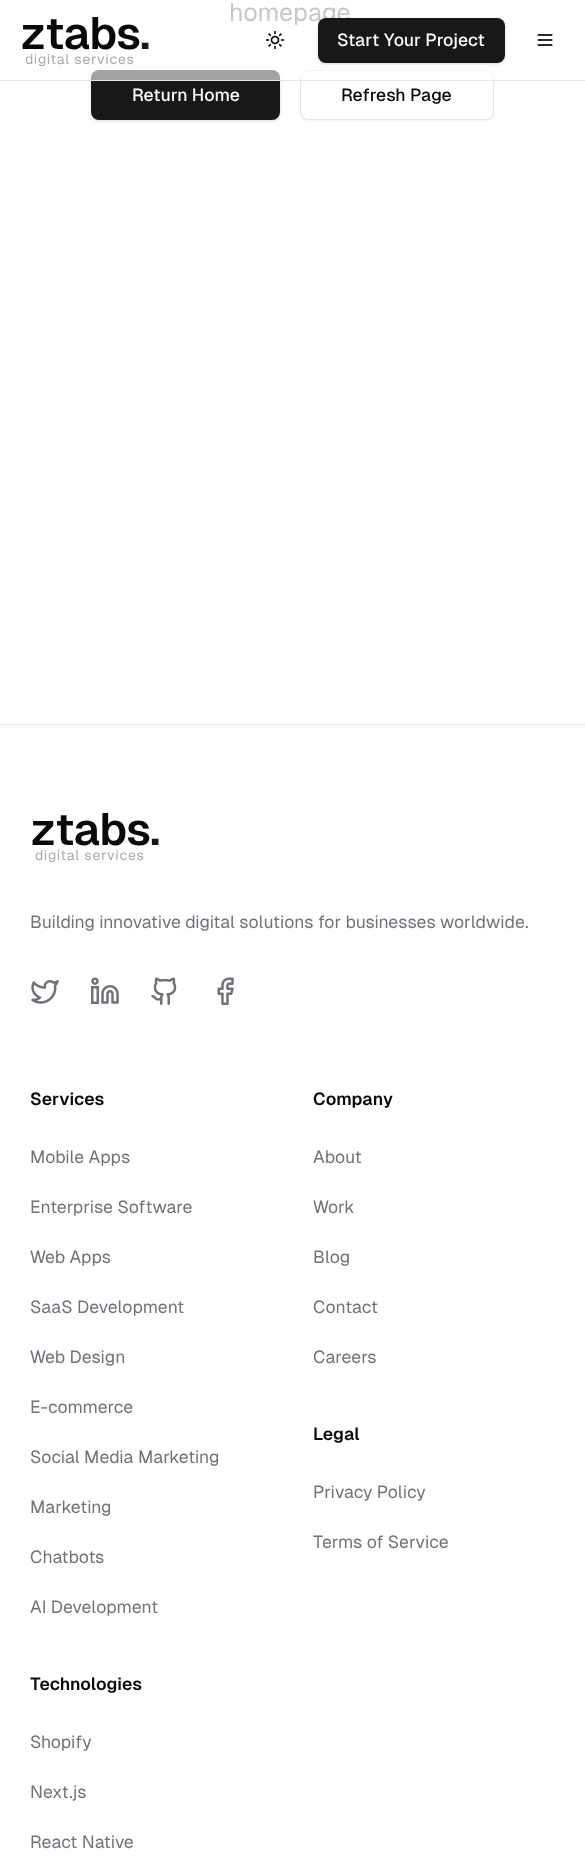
(async () => {
  const canvas = document.querySelector("canvas");
  canvas.width = 585;
  canvas.height = 1866;
  const ctx = canvas.getContext("2d");
  ctx.miterLimit = 4;
  ctx.fontKerning = "normal";
  async function loadImage(src) {
    const img = new Image();
    img.src = src;
    await img.decode();
    return img;
  }

  ctx.fillStyle = "#ffffff";
  ctx.fillRect(0, 0, 585, 1866);
  ctx.fillStyle = "rgba(0, 0, 0, 0.1)";
  ctx.filter = "blur(1px)";
  ctx.beginPath();
  ctx.roundRect(93, 73, 186, 47, 6);
  ctx.fill();
  ctx.filter = "none";
  ctx.filter = "blur(2px)";
  ctx.beginPath();
  ctx.roundRect(91, 71, 189, 50, 8);
  ctx.fill();
  ctx.filter = "none";
  ctx.fillStyle = "#18181b";
  ctx.beginPath();
  ctx.roundRect(91, 70, 189, 50, 8);
  ctx.fill();
  ctx.fillStyle = "rgba(0, 0, 0, 0.05)";
  ctx.filter = "blur(1px)";
  ctx.beginPath();
  ctx.roundRect(300, 71, 194, 50, 8);
  ctx.fill();
  ctx.filter = "none";
  ctx.fillStyle = "#ffffff";
  ctx.beginPath();
  ctx.roundRect(300.5, 70.5, 193, 49, 7.5);
  ctx.fill();
  ctx.strokeStyle = "#e4e4e7";
  ctx.stroke();
  ctx.fillStyle = "#e4e4e7";
  ctx.fillRect(0, 80, 585, 1);
  ctx.drawImage(await loadImage("img/2.png"), 537, 34, 16, 12);
  ctx.fillRect(0, 724, 585, 1);
  ctx.drawImage(await loadImage("img/3.png"), 31, 980, 28, 24);
  ctx.drawImage(await loadImage("img/4.png"), 91, 977, 28, 27);
  ctx.drawImage(await loadImage("img/5.png"), 151, 977, 26, 28);
  ctx.drawImage(await loadImage("img/6.png"), 217, 977, 17, 28);
  ctx.font = "25px Geist";
  ctx.fillStyle = "#71717a";
  ctx.fillText("homepage", 229, 21);
  ctx.font = "500 17.5px Geist";
  ctx.fillStyle = "#fafafa";
  ctx.fillText("Return Home", 132, 101);
  ctx.fillStyle = "#09090b";
  ctx.fillText("Refresh Page", 341, 101);
  ctx.fillStyle = "rgba(255, 255, 255, 0.6)";
  ctx.fillRect(89, 3, 405, 77);
  ctx.letterSpacing = "-1px";
  ctx.font = "600 45px Geist";
  ctx.fillStyle = "#09090b";
  ctx.fillText("ztabs", 20, 49);
  ctx.fillStyle = "#18181b";
  ctx.fillText(".", 140, 49);
  ctx.letterSpacing = "0.75px";
  ctx.font = "14px Geist";
  ctx.fillStyle = "#aaaaaf";
  ctx.fillText("digital services", 25, 64);
  ctx.drawImage(await loadImage("img/1.png"), 265, 30, 20, 20);
  ctx.fillStyle = "rgba(0, 0, 0, 0.1)";
  ctx.filter = "blur(1px)";
  ctx.beginPath();
  ctx.roundRect(319, 20, 185, 43, 6);
  ctx.fill();
  ctx.filter = "none";
  ctx.filter = "blur(2px)";
  ctx.beginPath();
  ctx.roundRect(318, 19, 187, 45, 8);
  ctx.fill();
  ctx.filter = "none";
  ctx.fillStyle = "#18181b";
  ctx.beginPath();
  ctx.roundRect(318, 18, 187, 45, 8);
  ctx.fill();
  ctx.letterSpacing = "0px";
  ctx.font = "500 17.5px Geist";
  ctx.fillStyle = "#fafafa";
  ctx.fillText("Start Your Project", 337, 46);
  ctx.letterSpacing = "-1px";
  ctx.font = "600 45px Geist";
  ctx.fillStyle = "#09090b";
  ctx.fillText("ztabs", 30, 845);
  ctx.fillStyle = "#18181b";
  ctx.fillText(".", 150, 845);
  ctx.letterSpacing = "0.75px";
  ctx.font = "14px Geist";
  ctx.fillStyle = "#aaaaaf";
  ctx.fillText("digital services", 35, 860);
  ctx.letterSpacing = "0px";
  ctx.font = "17.5px Geist";
  ctx.fillStyle = "#71717a";
  ctx.fillText("Building innovative digital solutions for businesses worldwide.", 30, 928);
  ctx.font = "600 17.5px Geist";
  ctx.fillStyle = "#09090b";
  ctx.fillText("Services", 30, 1105);
  ctx.font = "17.5px Geist";
  ctx.fillStyle = "#71717a";
  for (const [text, x, y] of [
    ["Mobile Apps", 30, 1163],
    ["Enterprise Software", 30, 1213],
    ["Web Apps", 30, 1263],
    ["SaaS Development", 30, 1313],
    ["Web Design", 30, 1363],
    ["E-commerce", 30, 1413],
    ["Social Media Marketing", 30, 1463],
    ["Marketing", 30, 1513],
    ["Chatbots", 30, 1563],
    ["AI Development", 30, 1613],
  ]) {
    ctx.fillText(text, x, y);
  }
  ctx.font = "600 17.5px Geist";
  ctx.fillStyle = "#09090b";
  ctx.fillText("Technologies", 30, 1690);
  ctx.font = "17.5px Geist";
  ctx.fillStyle = "#71717a";
  for (const [text, x, y] of [
    ["Shopify", 30, 1748],
    ["Next.js", 30, 1798],
    ["React Native", 30, 1848],
  ]) {
    ctx.fillText(text, x, y);
  }
  ctx.font = "600 17.5px Geist";
  ctx.fillStyle = "#09090b";
  ctx.fillText("Company", 313, 1105);
  ctx.font = "17.5px Geist";
  ctx.fillStyle = "#71717a";
  for (const [text, x, y] of [
    ["About", 313, 1163],
    ["Work", 313, 1213],
    ["Blog", 313, 1263],
    ["Contact", 313, 1313],
    ["Careers", 313, 1363],
  ]) {
    ctx.fillText(text, x, y);
  }
  ctx.font = "600 17.5px Geist";
  ctx.fillStyle = "#09090b";
  ctx.fillText("Legal", 313, 1440);
  ctx.font = "17.5px Geist";
  ctx.fillStyle = "#71717a";
  ctx.fillText("Privacy Policy", 313, 1498);
  ctx.fillText("Terms of Service", 313, 1548);
})();
